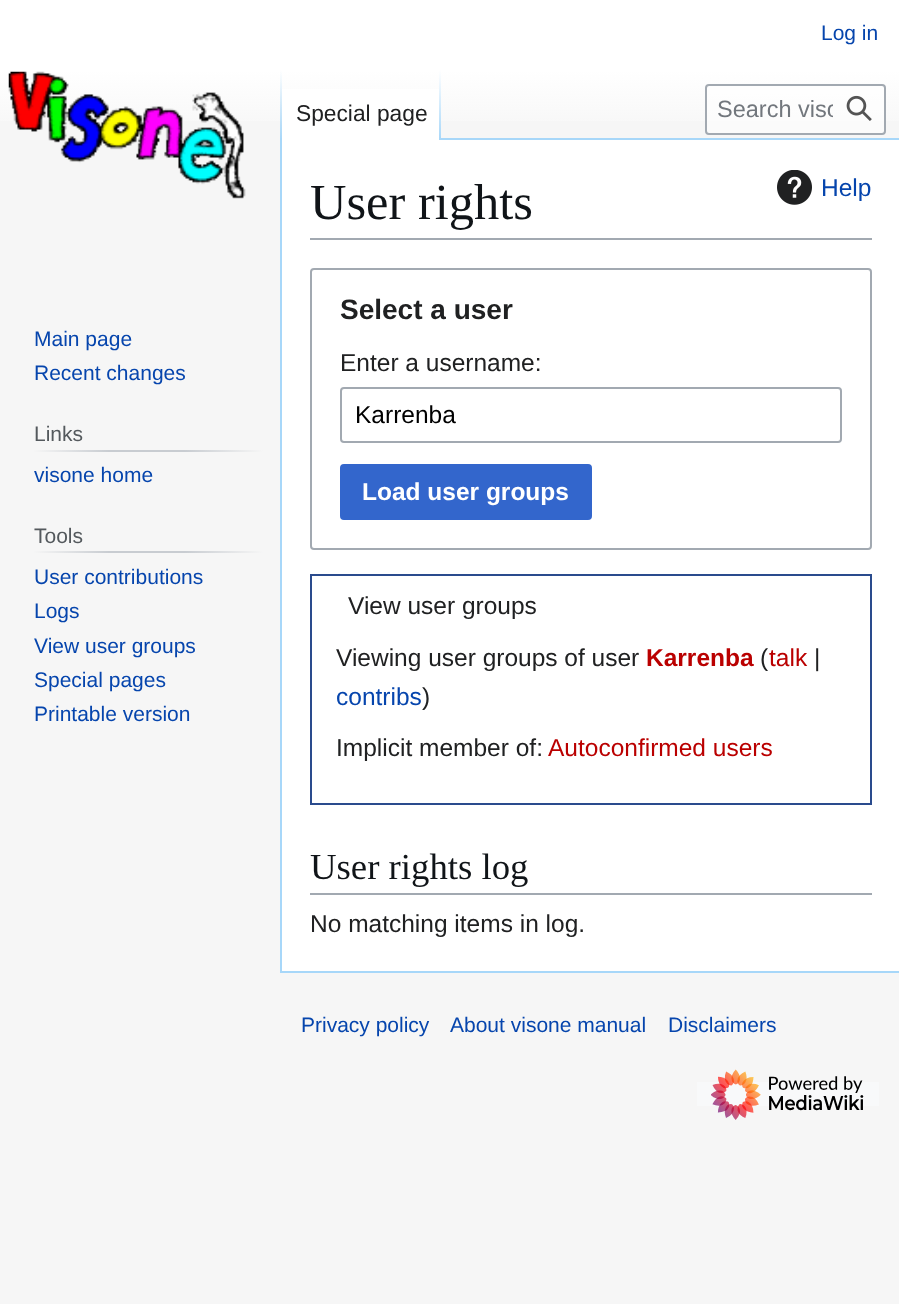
(async () => {
  const canvas = document.querySelector("canvas");
  canvas.width = 899;
  canvas.height = 1304;
  const ctx = canvas.getContext("2d");
  ctx.miterLimit = 4;
  ctx.fontKerning = "normal";
  async function loadImage(src) {
    const img = new Image();
    img.src = src;
    await img.decode();
    return img;
  }
  let gradient;

  ctx.fillStyle = "#f6f6f6";
  ctx.fillRect(0, 0, 899, 1304);
  gradient = ctx.createLinearGradient(450, 0, 450, 140);
  gradient.addColorStop(0.5, "#ffffff");
  gradient.addColorStop(1, "#f6f6f6");
  ctx.fillStyle = gradient;
  ctx.fillRect(0, 0, 899, 121);
  ctx.fillStyle = "#a7d7f9";
  ctx.fillRect(280, 971, 619, 2);
  ctx.fillRect(280, 138, 2, 835);
  gradient = ctx.createLinearGradient(281, 70, 281, 140);
  gradient.addColorStop(0, "rgba(167, 215, 249, 0)");
  gradient.addColorStop(1, "#a7d7f9");
  ctx.fillStyle = gradient;
  ctx.fillRect(280, 70, 2, 70);
  ctx.fillStyle = "#ffffff";
  ctx.fillRect(282, 89, 157, 51);
  gradient = ctx.createLinearGradient(440, 70, 440, 140);
  gradient.addColorStop(0, "#ffffff");
  gradient.addColorStop(1, "#a7d7f9");
  ctx.fillStyle = gradient;
  ctx.fillRect(439, 70, 2, 70);
  ctx.fillStyle = "rgba(255, 255, 255, 0.5)";
  ctx.beginPath();
  ctx.roundRect(706, 85, 179, 49, 3);
  ctx.fill();
  ctx.strokeStyle = "#a2a9b1";
  ctx.lineWidth = 2;
  ctx.stroke();
  ctx.drawImage(await loadImage("img/1.png"), 846, 95, 26, 26);
  ctx.drawImage(await loadImage("img/2.png"), 8, 71, 238, 128);
  gradient = ctx.createLinearGradient(33, 451, 263, 451);
  gradient.addColorStop(0, "#f6f6f6");
  gradient.addColorStop(0.33, "#c8ccd1");
  gradient.addColorStop(0.66, "#c8ccd1");
  gradient.addColorStop(1, "#f6f6f6");
  ctx.fillStyle = gradient;
  ctx.fillRect(33, 450, 230, 2);
  gradient = ctx.createLinearGradient(33, 552, 263, 552);
  gradient.addColorStop(0, "#f6f6f6");
  gradient.addColorStop(0.33, "#c8ccd1");
  gradient.addColorStop(0.66, "#c8ccd1");
  gradient.addColorStop(1, "#f6f6f6");
  ctx.fillStyle = gradient;
  ctx.fillRect(33, 551, 230, 2);
  for (const [x, y, w, h, color] of [
    [282, 140, 617, 831, "#ffffff"],
    [441, 138, 458, 2, "#a7d7f9"],
    [310, 238, 562, 2, "#a2a9b1"],
  ]) {
    ctx.fillStyle = color;
    ctx.fillRect(x, y, w, h);
  }
  ctx.drawImage(await loadImage("img/3.png"), 777, 170, 35, 35);
  ctx.beginPath();
  ctx.roundRect(311, 269, 560, 280, 3);
  ctx.stroke();
  ctx.beginPath();
  ctx.roundRect(341, 388, 500, 54, 3);
  ctx.stroke();
  ctx.fillStyle = "#3366cc";
  ctx.beginPath();
  ctx.roundRect(341, 465, 250, 54, 3);
  ctx.fill();
  ctx.strokeStyle = "#3366cc";
  ctx.stroke();
  ctx.strokeStyle = "#2a4b8d";
  ctx.strokeRect(311, 575, 560, 229);
  ctx.fillStyle = "#a2a9b1";
  ctx.fillRect(310, 893, 562, 2);
  ctx.fillStyle = "#f8f9fa";
  ctx.fillRect(697, 1082, 182, 24);
  ctx.drawImage(await loadImage("img/4.png"), 711, 1069, 153, 51);
  ctx.font = "21px Liberation Sans";
  ctx.fillStyle = "#0645ad";
  ctx.fillText("Log in", 821, 40);
  ctx.font = "22.75px Liberation Sans";
  ctx.fillStyle = "#202122";
  ctx.fillText("Special page", 296, 121);
  ctx.save();
  ctx.beginPath();
  ctx.rect(718, 96, 115, 27);
  ctx.clip();
  ctx.font = "23.5px Liberation Sans";
  ctx.fillStyle = "#72777d";
  ctx.fillText("Search viso", 717, 117);
  ctx.restore();
  ctx.font = "21px Liberation Sans";
  ctx.fillStyle = "#0645ad";
  ctx.fillText("Main page", 34, 346);
  ctx.fillText("Recent changes", 34, 380);
  ctx.fillStyle = "#54595d";
  ctx.fillText("Links", 34, 441);
  ctx.fillStyle = "#0645ad";
  ctx.fillText("visone home", 34, 482);
  ctx.fillStyle = "#54595d";
  ctx.fillText("Tools", 34, 543);
  ctx.fillStyle = "#0645ad";
  for (const [text, x, y] of [
    ["User contributions", 34, 584],
    ["Logs", 34, 618],
    ["View user groups", 34, 653],
    ["Special pages", 34, 687],
    ["Printable version", 34, 721],
  ]) {
    ctx.fillText(text, x, y);
  }
  ctx.font = "50.5px Liberation Serif";
  ctx.fillStyle = "#101418";
  ctx.fillText("User rights", 310, 219);
  ctx.font = "24.5px Liberation Sans";
  ctx.fillStyle = "#0645ad";
  ctx.fillText("Help", 821, 196);
  ctx.font = "bold 28px Liberation Sans";
  ctx.fillStyle = "#202122";
  ctx.fillText("Select a user", 340, 319);
  ctx.font = "24.5px Liberation Sans";
  ctx.fillText("Enter a username:", 340, 371);
  ctx.fillStyle = "#000000";
  ctx.fillText("Karrenba", 355, 423);
  ctx.font = "bold 24.5px Liberation Sans";
  ctx.fillStyle = "#ffffff";
  ctx.fillText("Load user groups", 362, 500);
  ctx.font = "24.5px Liberation Sans";
  ctx.fillStyle = "#202122";
  ctx.fillText("View user groups", 348, 614);
  ctx.fillText("Viewing user groups of user", 336, 666);
  ctx.font = "bold 24.5px Liberation Sans";
  ctx.fillStyle = "#ba0000";
  ctx.fillText("Karrenba", 646, 666);
  ctx.font = "24.5px Liberation Sans";
  ctx.fillStyle = "#202122";
  ctx.fillText("(", 760, 666);
  ctx.fillStyle = "#ba0000";
  ctx.fillText("talk", 769, 666);
  ctx.fillStyle = "#202122";
  ctx.fillText("|", 814, 666);
  ctx.fillStyle = "#0645ad";
  ctx.fillText("contribs", 336, 705);
  ctx.fillStyle = "#202122";
  ctx.fillText(")", 422, 705);
  ctx.fillText("Implicit member of:", 336, 756);
  ctx.fillStyle = "#ba0000";
  ctx.fillText("Autoconfirmed users", 548, 756);
  ctx.font = "36.75px Liberation Serif";
  ctx.fillStyle = "#101418";
  ctx.fillText("User rights log", 310, 879);
  ctx.font = "24.5px Liberation Sans";
  ctx.fillStyle = "#202122";
  ctx.fillText("No matching items in log.", 310, 932);
  ctx.font = "21px Liberation Sans";
  ctx.fillStyle = "#0645ad";
  for (const [text, x, y] of [
    ["Privacy policy", 301, 1032],
    ["About visone manual", 450, 1032],
    ["Disclaimers", 668, 1032],
  ]) {
    ctx.fillText(text, x, y);
  }
})();
